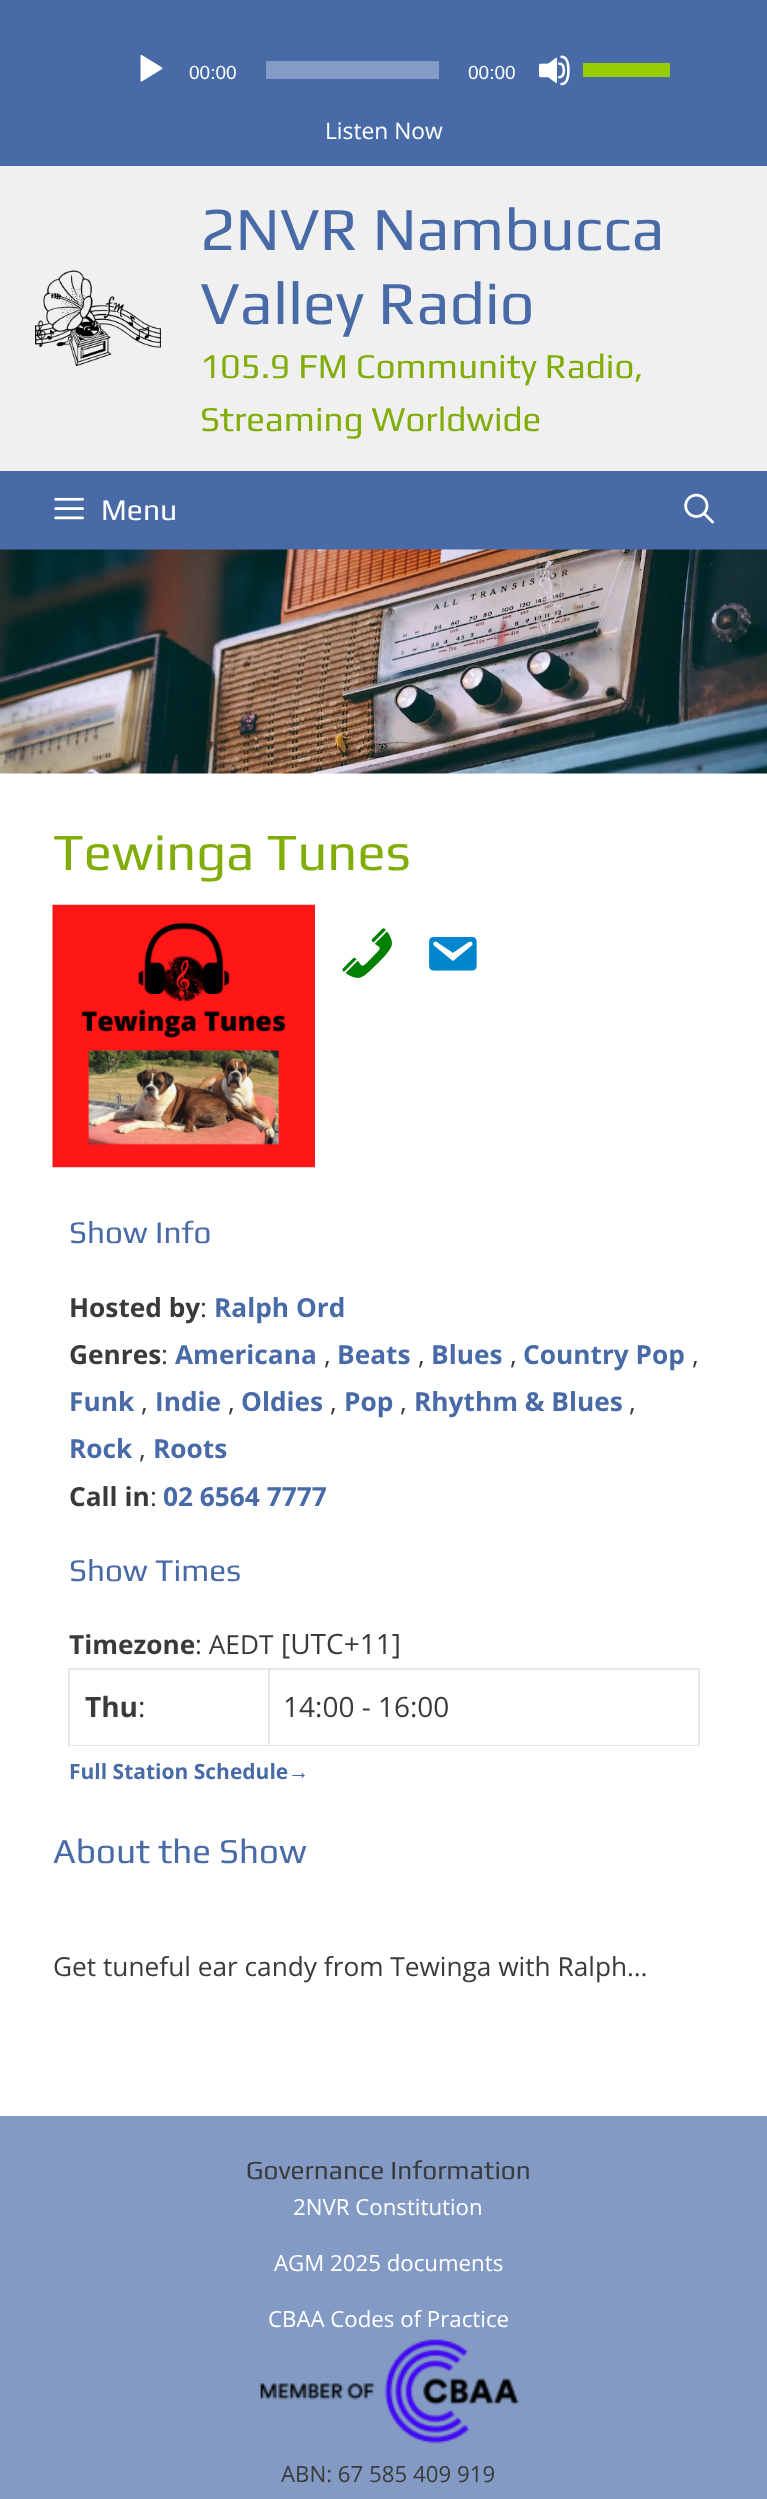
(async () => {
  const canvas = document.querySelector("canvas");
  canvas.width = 767;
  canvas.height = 2499;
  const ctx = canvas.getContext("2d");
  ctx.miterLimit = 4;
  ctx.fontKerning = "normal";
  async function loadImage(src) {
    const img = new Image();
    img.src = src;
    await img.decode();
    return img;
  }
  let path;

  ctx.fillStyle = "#ffffff";
  ctx.fillRect(0, 0, 767, 2499);
  ctx.fillStyle = "#486ba8";
  ctx.fillRect(0, 0, 767, 166);
  ctx.drawImage(await loadImage("img/1.png"), 140, 54, 23, 28);
  ctx.fillStyle = "#849cc5";
  ctx.fillRect(266, 61, 173, 18);
  ctx.drawImage(await loadImage("img/2.png"), 539, 55, 31, 31);
  ctx.fillStyle = "#97cd00";
  ctx.fillRect(583, 63, 87, 14);
  ctx.fillStyle = "#f0f0f0";
  ctx.fillRect(0, 166, 767, 305);
  ctx.drawImage(await loadImage("img/3.png"), 35, 270, 126, 96);
  ctx.fillStyle = "#486ba8";
  ctx.fillRect(0, 471, 767, 79);
  ctx.drawImage(await loadImage("img/4.png"), 54, 497, 30, 23);
  ctx.drawImage(await loadImage("img/5.png"), 684, 493, 30, 31);
  ctx.drawImage(await loadImage("img/6.png"), 0, 549, 767, 225);
  ctx.drawImage(await loadImage("img/7.png"), 52, 904, 263, 264);
  ctx.drawImage(await loadImage("img/8.png"), 342, 928, 50, 50);
  ctx.drawImage(await loadImage("img/9.png"), 429, 936, 48, 35);
  ctx.fillStyle = "#e6e6e6";
  path = new Path2D("M68 1668H700V1670H70Z");
  ctx.fill(path);
  ctx.fillStyle = "rgba(0, 0, 0, 0.1)";
  path = new Path2D("M68 1746V1668L70 1670V1746Z");
  ctx.fill(path);
  ctx.fillStyle = "#e6e6e6";
  path = new Path2D("M270 1670V1746L268 1745V1670Z");
  ctx.fill(path);
  ctx.fillStyle = "rgba(0, 0, 0, 0.1)";
  path = new Path2D("M270 1746H70V1745H268Z");
  ctx.fill(path);
  ctx.fillStyle = "#e6e6e6";
  path = new Path2D("M700 1670V1746L698 1745V1670Z");
  ctx.fill(path);
  ctx.fillStyle = "rgba(0, 0, 0, 0.1)";
  path = new Path2D("M700 1746H270V1745H698Z");
  ctx.fill(path);
  ctx.fillStyle = "#839bc4";
  ctx.fillRect(0, 2116, 767, 383);
  ctx.drawImage(await loadImage("img/10.png"), 260, 2339, 259, 105);
  ctx.font = "19px Liberation Sans";
  ctx.fillStyle = "#ffffff";
  ctx.fillText("00:00", 189, 79);
  ctx.fillText("00:00", 468, 79);
  ctx.font = "22.75px Open Sans";
  ctx.fillText("Listen Now", 325, 139);
  ctx.font = "61.25px Play";
  ctx.fillStyle = "#486ba8";
  ctx.fillText("2NVR Nambucca", 200, 250);
  ctx.fillText("Valley Radio", 200, 324);
  ctx.font = "35px Play";
  ctx.fillStyle = "#81ad09";
  ctx.fillText("105.9 FM Community Radio,", 200, 378);
  ctx.fillText("Streaming Worldwide", 200, 431);
  ctx.font = "30px Play";
  ctx.fillStyle = "#ffffff";
  ctx.fillText("Menu", 101, 520);
  ctx.font = "52.5px Play";
  ctx.fillStyle = "#81ad09";
  ctx.fillText("Tewinga Tunes", 53, 870);
  ctx.font = "31.5px Play";
  ctx.fillStyle = "#486ba8";
  ctx.fillText("Show Info", 69, 1243);
  ctx.font = "bold 26.25px Open Sans";
  ctx.fillStyle = "#3a3a3a";
  ctx.fillText("Hosted by", 69, 1317);
  ctx.font = "26.25px Open Sans";
  ctx.fillText(":", 200, 1317);
  ctx.font = "bold 26.25px Open Sans";
  ctx.fillStyle = "#486ba8";
  ctx.fillText("Ralph Ord", 214, 1317);
  ctx.fillStyle = "#3a3a3a";
  ctx.fillText("Genres", 69, 1364);
  ctx.font = "26.25px Open Sans";
  ctx.fillText(":", 161, 1364);
  ctx.font = "bold 26.25px Open Sans";
  ctx.fillStyle = "#486ba8";
  ctx.fillText("Americana", 175, 1364);
  ctx.font = "26.25px Open Sans";
  ctx.fillStyle = "#3a3a3a";
  ctx.fillText(",", 324, 1364);
  ctx.font = "bold 26.25px Open Sans";
  ctx.fillStyle = "#486ba8";
  ctx.fillText("Beats", 337, 1364);
  ctx.font = "26.25px Open Sans";
  ctx.fillStyle = "#3a3a3a";
  ctx.fillText(",", 418, 1364);
  ctx.font = "bold 26.25px Open Sans";
  ctx.fillStyle = "#486ba8";
  ctx.fillText("Blues", 431, 1364);
  ctx.font = "26.25px Open Sans";
  ctx.fillStyle = "#3a3a3a";
  ctx.fillText(",", 510, 1364);
  ctx.font = "bold 26.25px Open Sans";
  ctx.fillStyle = "#486ba8";
  ctx.fillText("Country Pop", 523, 1364);
  ctx.font = "26.25px Open Sans";
  ctx.fillStyle = "#3a3a3a";
  ctx.fillText(",", 692, 1364);
  ctx.font = "bold 26.25px Open Sans";
  ctx.fillStyle = "#486ba8";
  ctx.fillText("Funk", 69, 1411);
  ctx.font = "26.25px Open Sans";
  ctx.fillStyle = "#3a3a3a";
  ctx.fillText(",", 141, 1411);
  ctx.font = "bold 26.25px Open Sans";
  ctx.fillStyle = "#486ba8";
  ctx.fillText("Indie", 155, 1411);
  ctx.font = "26.25px Open Sans";
  ctx.fillStyle = "#3a3a3a";
  ctx.fillText(",", 228, 1411);
  ctx.font = "bold 26.25px Open Sans";
  ctx.fillStyle = "#486ba8";
  ctx.fillText("Oldies", 241, 1411);
  ctx.font = "26.25px Open Sans";
  ctx.fillStyle = "#3a3a3a";
  ctx.fillText(",", 330, 1411);
  ctx.font = "bold 26.25px Open Sans";
  ctx.fillStyle = "#486ba8";
  ctx.fillText("Pop", 344, 1411);
  ctx.font = "26.25px Open Sans";
  ctx.fillStyle = "#3a3a3a";
  ctx.fillText(",", 400, 1411);
  ctx.font = "bold 26.25px Open Sans";
  ctx.fillStyle = "#486ba8";
  ctx.fillText("Rhythm & Blues", 414, 1411);
  ctx.font = "26.25px Open Sans";
  ctx.fillStyle = "#3a3a3a";
  ctx.fillText(",", 629, 1411);
  ctx.font = "bold 26.25px Open Sans";
  ctx.fillStyle = "#486ba8";
  ctx.fillText("Rock", 69, 1458);
  ctx.font = "26.25px Open Sans";
  ctx.fillStyle = "#3a3a3a";
  ctx.fillText(",", 139, 1458);
  ctx.font = "bold 26.25px Open Sans";
  ctx.fillStyle = "#486ba8";
  ctx.fillText("Roots", 153, 1458);
  ctx.fillStyle = "#3a3a3a";
  ctx.fillText("Call in", 69, 1506);
  ctx.font = "26.25px Open Sans";
  ctx.fillText(":", 150, 1506);
  ctx.font = "bold 26.25px Open Sans";
  ctx.fillStyle = "#486ba8";
  ctx.fillText("02 6564 7777", 163, 1506);
  ctx.font = "31.5px Play";
  ctx.fillText("Show Times", 69, 1581);
  ctx.font = "bold 26.25px Open Sans";
  ctx.fillStyle = "#3a3a3a";
  ctx.fillText("Timezone", 69, 1654);
  ctx.font = "26.25px Open Sans";
  ctx.fillText(": AEDT", 195, 1654);
  ctx.font = "28px Open Sans";
  ctx.fillText("[UTC+11]", 281, 1654);
  ctx.font = "bold 28px Open Sans";
  ctx.fillText("Thu", 85, 1717);
  ctx.font = "28px Open Sans";
  ctx.fillText(":", 138, 1717);
  ctx.fillText("14:00 - 16:00", 283, 1717);
  ctx.font = "bold 21px Open Sans";
  ctx.fillStyle = "#486ba8";
  ctx.fillText("Full Station Schedule", 69, 1779);
  ctx.font = "bold 21px Liberation Sans";
  ctx.fillText("→", 288, 1779);
  ctx.font = "35px Play";
  ctx.fillText("About the Show", 53, 1863);
  ctx.font = "26.25px Open Sans";
  ctx.fillStyle = "#3a3a3a";
  ctx.fillText("Get tuneful ear candy from Tewinga with Ralph…", 53, 1976);
  ctx.font = "26.25px Play";
  ctx.fillText("Governance Information", 246, 2179);
  ctx.font = "22.25px Open Sans";
  ctx.fillStyle = "#ffffff";
  for (const [text, x, y] of [
    ["2NVR Constitution", 293, 2215],
    ["AGM 2025 documents", 274, 2271],
    ["CBAA Codes of Practice", 268, 2327],
  ]) {
    ctx.fillText(text, x, y);
  }
  ctx.fillStyle = "#3a3a3a";
  ctx.fillText("ABN: 67 585 409 919", 281, 2482);
})();
